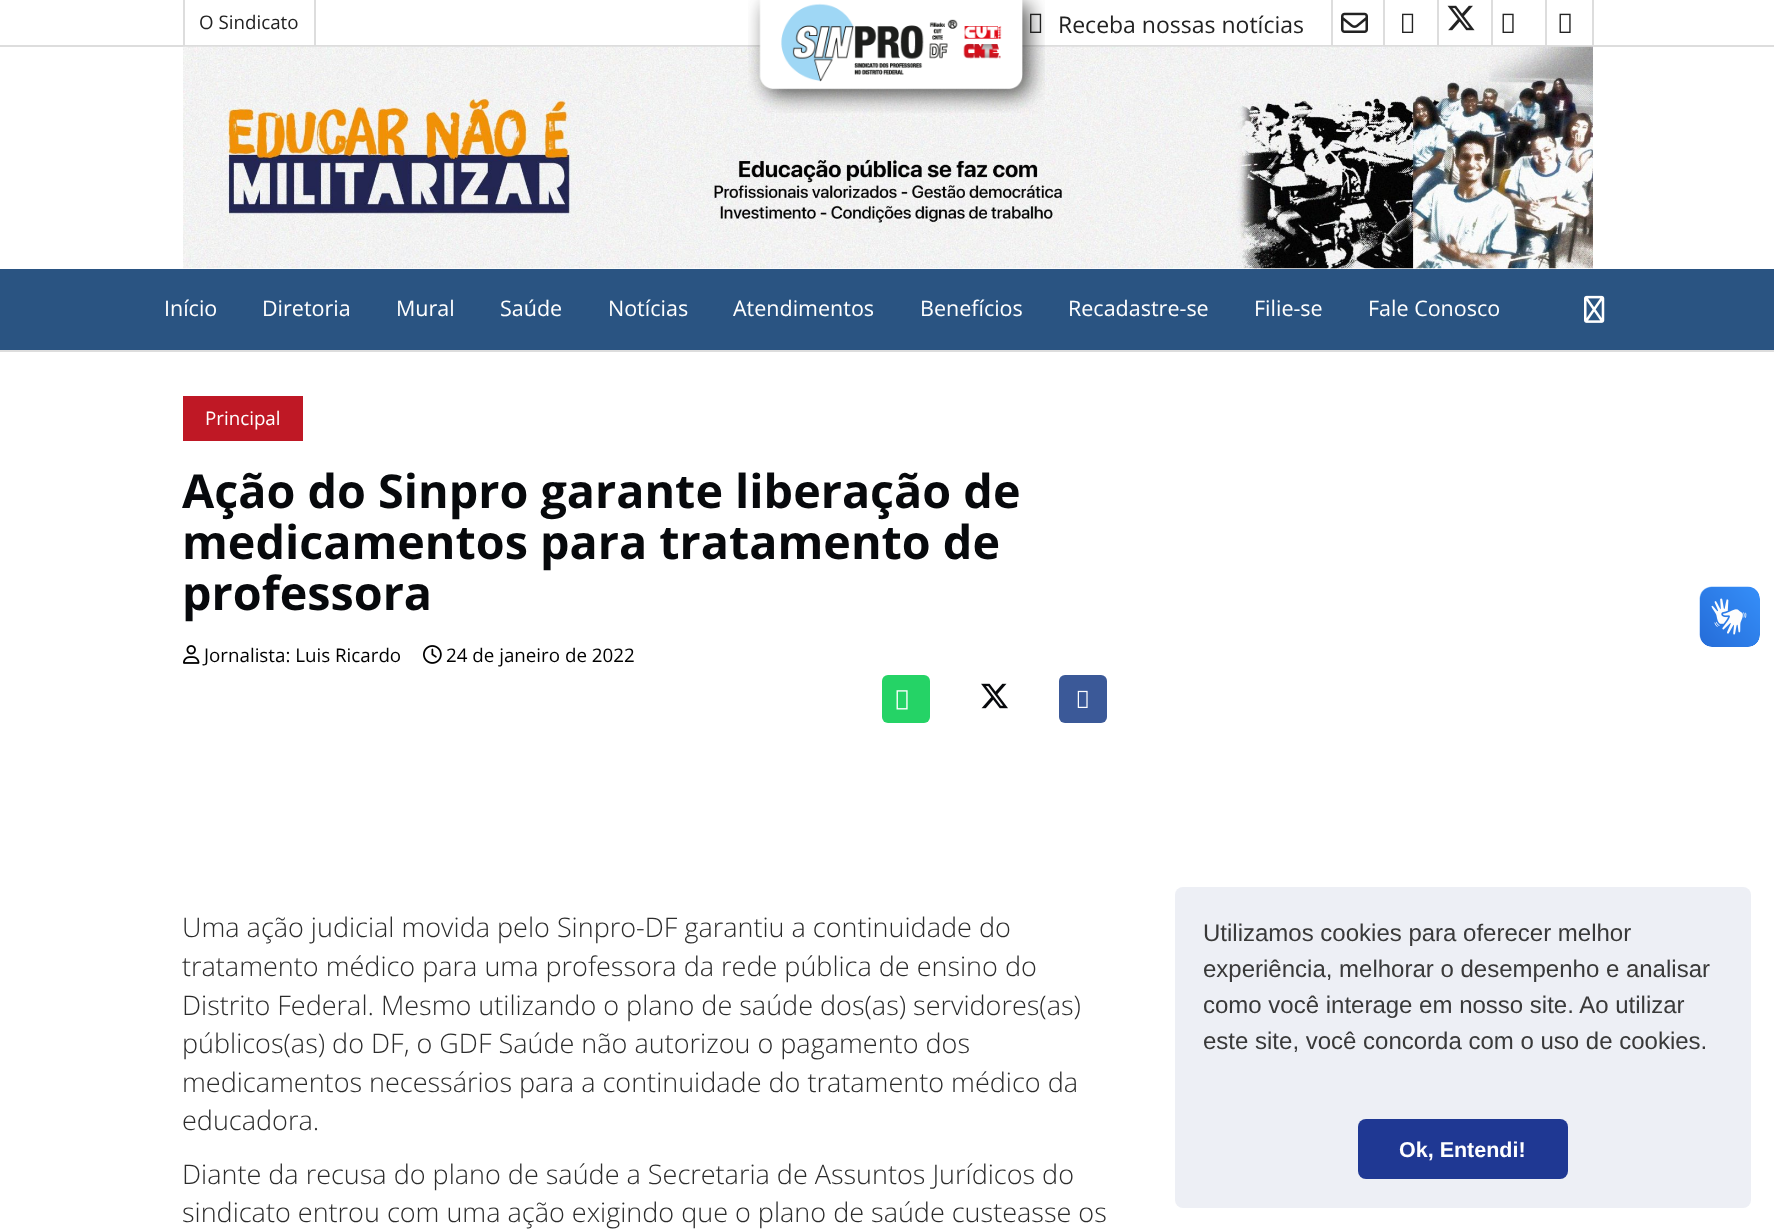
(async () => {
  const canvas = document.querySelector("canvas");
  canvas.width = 1774;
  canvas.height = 1231;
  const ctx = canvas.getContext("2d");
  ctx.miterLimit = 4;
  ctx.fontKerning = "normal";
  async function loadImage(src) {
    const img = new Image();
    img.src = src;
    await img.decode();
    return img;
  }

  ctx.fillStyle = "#ffffff";
  ctx.fillRect(0, 0, 1774, 1231);
  for (const [x, y, w, h, color] of [
    [0, 45, 1774, 2, "#dddddd"],
    [314, 0, 2, 45, "#dddddd"],
    [183, 0, 2, 45, "#dddddd"],
  ]) {
    ctx.fillStyle = color;
    ctx.fillRect(x, y, w, h);
  }
  ctx.drawImage(await loadImage("img/2.png"), 1030, 13, 12, 20);
  ctx.drawImage(await loadImage("img/6.png"), 183, 46, 1410, 223);
  ctx.drawImage(await loadImage("img/1.png"), 748, 0, 297, 113);
  ctx.fillRect(1331, 0, 2, 45);
  ctx.drawImage(await loadImage("img/3.png"), 1341, 12, 27, 21);
  ctx.fillRect(1383, 0, 2, 45);
  ctx.drawImage(await loadImage("img/2.png"), 1402, 13, 12, 20);
  ctx.fillRect(1437, 0, 2, 45);
  ctx.drawImage(await loadImage("img/4.png"), 1447, 5, 28, 26);
  ctx.fillRect(1491, 0, 2, 45);
  ctx.drawImage(await loadImage("img/5.png"), 1502, 13, 12, 20);
  ctx.fillRect(1592, 0, 2, 45);
  ctx.fillRect(1545, 0, 2, 45);
  ctx.drawImage(await loadImage("img/5.png"), 1559, 13, 12, 20);
  ctx.fillStyle = "#2a5482";
  ctx.fillRect(0, 269, 1774, 81);
  ctx.fillStyle = "#dddddd";
  ctx.fillRect(0, 350, 1774, 2);
  ctx.drawImage(await loadImage("img/7.png"), 1584, 295, 21, 28);
  ctx.fillStyle = "#bf1825";
  ctx.fillRect(183, 396, 120, 45);
  ctx.drawImage(await loadImage("img/8.png"), 183, 645, 17, 19);
  ctx.drawImage(await loadImage("img/9.png"), 423, 645, 19, 19);
  ctx.fillStyle = "#25d366";
  ctx.beginPath();
  ctx.roundRect(882, 675, 48, 48, 6);
  ctx.fill();
  ctx.drawImage(await loadImage("img/10.png"), 896, 690, 12, 20);
  ctx.drawImage(await loadImage("img/11.png"), 981, 683, 27, 26);
  ctx.fillStyle = "#3b5998";
  ctx.beginPath();
  ctx.roundRect(1059, 675, 48, 48, 6);
  ctx.fill();
  ctx.drawImage(await loadImage("img/12.png"), 1077, 690, 11, 18);
  ctx.drawImage(await loadImage("img/13.png"), 1699, 586, 61, 61);
  ctx.drawImage(await loadImage("img/14.png"), 1700, 587, 60, 60);
  ctx.fillStyle = "#edeff5";
  ctx.beginPath();
  ctx.roundRect(1175, 887, 576, 321, 8);
  ctx.fill();
  ctx.fillStyle = "#1f3893";
  ctx.beginPath();
  ctx.roundRect(1358, 1119, 210, 60, 8);
  ctx.fill();
  ctx.font = "18.75px Open Sans";
  ctx.fillStyle = "#222222";
  ctx.fillText("O Sindicato", 199, 29);
  ctx.font = "23px Open Sans";
  ctx.fillText("Receba nossas notícias", 1058, 33);
  ctx.font = "21.5px Open Sans";
  ctx.fillStyle = "#ffffff";
  for (const [text, x, y] of [
    ["Início", 164, 316],
    ["Diretoria", 262, 316],
    ["Mural", 396, 316],
    ["Saúde", 500, 316],
    ["Notícias", 608, 316],
    ["Atendimentos", 733, 316],
    ["Benefícios", 920, 316],
    ["Recadastre-se", 1068, 316],
    ["Filie-se", 1254, 316],
    ["Fale Conosco", 1368, 316],
  ]) {
    ctx.fillText(text, x, y);
  }
  ctx.font = "18.75px Open Sans";
  ctx.fillText("Principal", 205, 425);
  ctx.font = "bold 46.7px Open Sans";
  ctx.fillStyle = "#07090c";
  for (const [text, x, y] of [
    ["Ação do Sinpro garante liberação de", 182, 508],
    ["medicamentos para tratamento de", 182, 559],
    ["professora", 182, 610],
  ]) {
    ctx.fillText(text, x, y);
  }
  ctx.font = "18.75px Open Sans";
  ctx.fillStyle = "#000000";
  ctx.fillText("Jornalista: Luis Ricardo", 204, 662);
  ctx.fillText("24 de janeiro de 2022", 446, 662);
  ctx.font = "300 27px Open Sans";
  ctx.fillStyle = "#2c2c2c";
  for (const [text, x, y] of [
    ["Uma ação judicial movida pelo Sinpro-DF garantiu a continuidade do", 182, 937],
    ["tratamento médico para uma professora da rede pública de ensino do", 182, 976],
    ["Distrito Federal. Mesmo utilizando o plano de saúde dos(as) servidores(as)", 182, 1015],
    ["públicos(as) do DF, o GDF Saúde não autorizou o pagamento dos", 182, 1053],
    ["medicamentos necessários para a continuidade do tratamento médico da", 182, 1092],
    ["educadora.", 182, 1130],
    ["Diante da recusa do plano de saúde a Secretaria de Assuntos Jurídicos do", 182, 1184],
    ["sindicato entrou com uma ação exigindo que o plano de saúde custeasse os", 182, 1222],
  ]) {
    ctx.fillText(text, x, y);
  }
  ctx.font = "24px Liberation Sans";
  ctx.fillStyle = "#393939";
  for (const [text, x, y] of [
    ["Utilizamos cookies para oferecer melhor", 1203, 941],
    ["experiência, melhorar o desempenho e analisar", 1203, 977],
    ["como você interage em nosso site. Ao utilizar", 1203, 1013],
    ["este site, você concorda com o uso de cookies.", 1203, 1049],
  ]) {
    ctx.fillText(text, x, y);
  }
  ctx.font = "bold 21.5px Liberation Sans";
  ctx.fillStyle = "#ffffff";
  ctx.fillText("Ok, Entendi!", 1399, 1157);
})();
